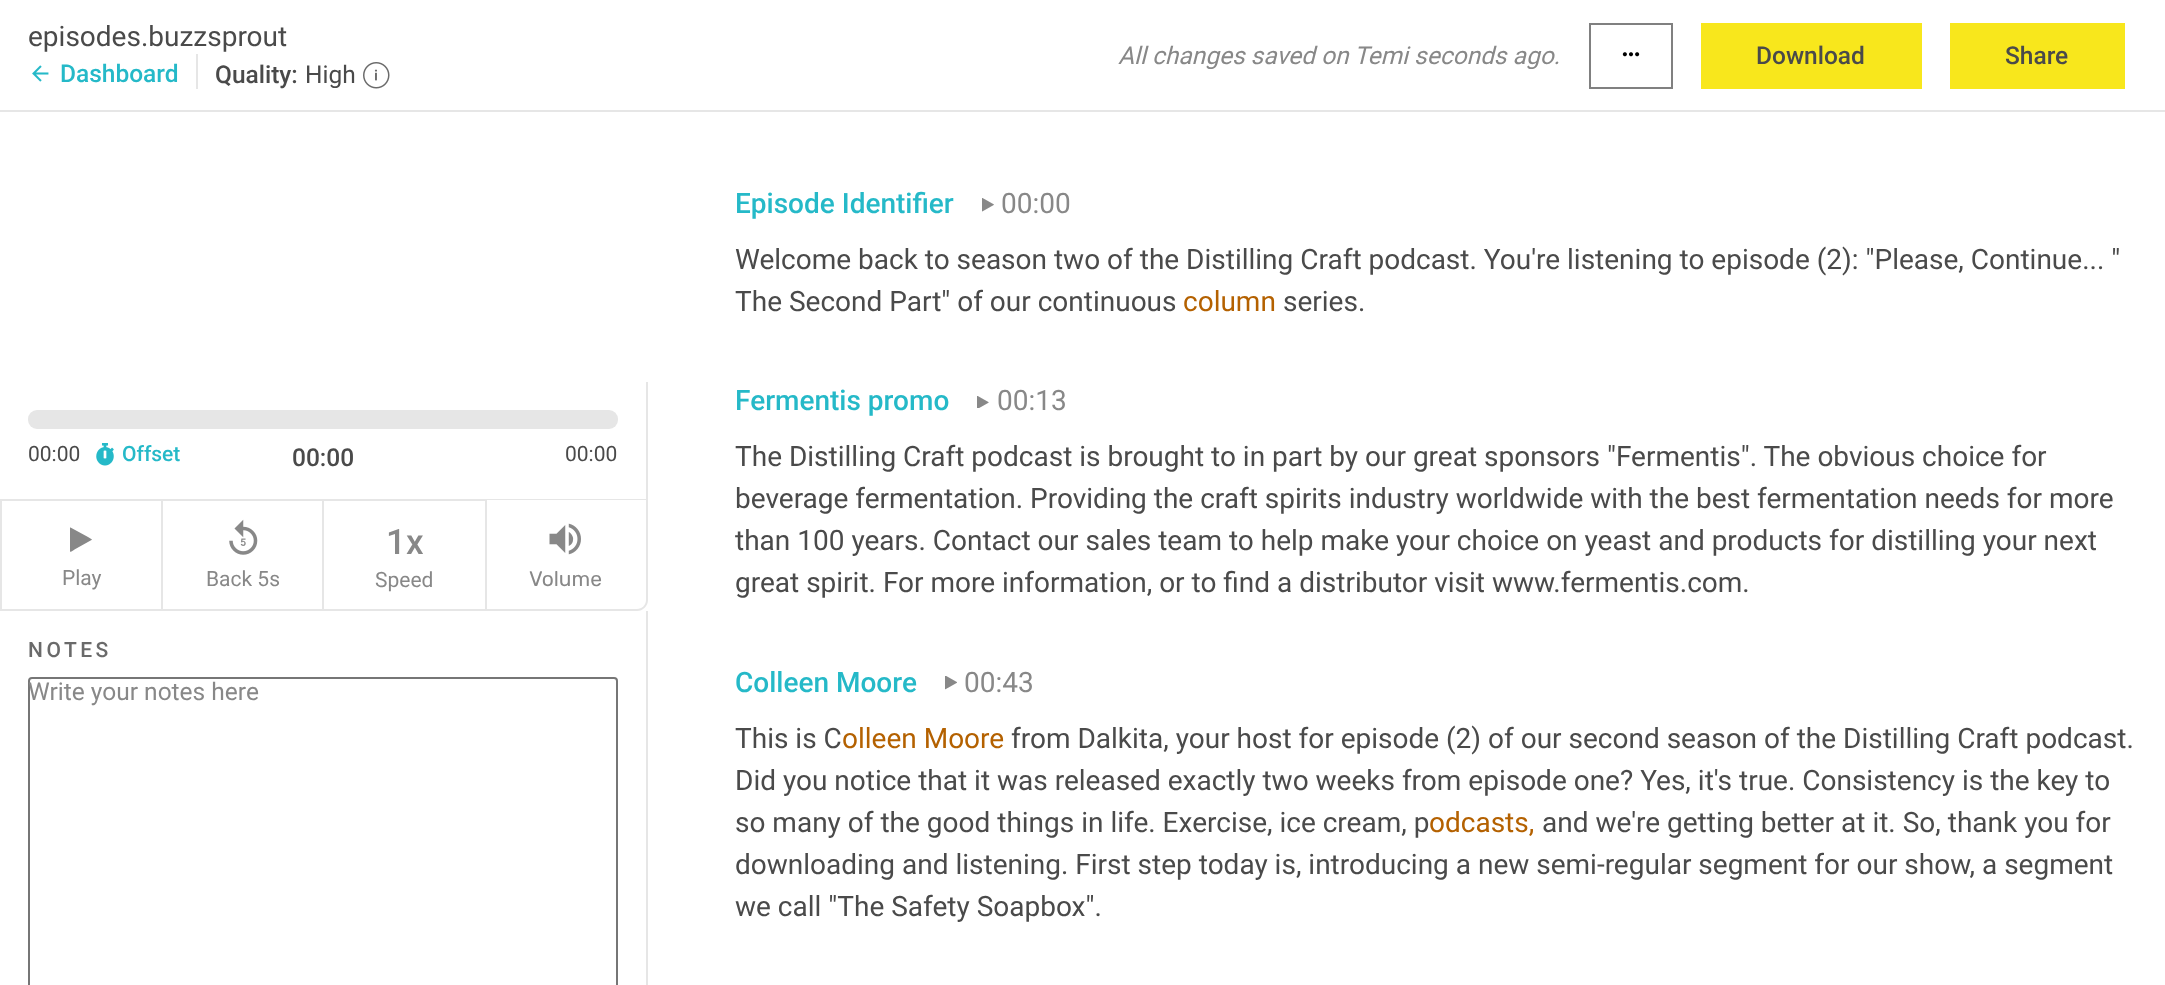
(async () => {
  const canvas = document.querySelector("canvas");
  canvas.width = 2165;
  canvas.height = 985;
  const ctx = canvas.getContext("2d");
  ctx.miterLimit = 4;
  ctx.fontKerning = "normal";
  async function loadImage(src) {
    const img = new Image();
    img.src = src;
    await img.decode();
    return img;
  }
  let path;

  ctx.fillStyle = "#ffffff";
  ctx.fillRect(0, 0, 2165, 985);
  ctx.fillStyle = "#e6e6e6";
  ctx.fillRect(0, 110, 2165, 2);
  ctx.drawImage(await loadImage("img/1.png"), 32, 65, 17, 17);
  ctx.fillRect(196, 54, 2, 35);
  ctx.drawImage(await loadImage("img/2.png"), 363, 62, 27, 27);
  ctx.strokeStyle = "#808080";
  ctx.lineWidth = 2;
  ctx.strokeRect(1590, 24, 82, 64);
  ctx.drawImage(await loadImage("img/3.png"), 1622, 52, 18, 5);
  for (const [x, y, w, h, color] of [
    [1701, 23, 221, 66, "#f8e71c"],
    [1950, 23, 175, 66, "#f8e71c"],
    [646, 382, 2, 117, "#e6e6e6"],
  ]) {
    ctx.fillStyle = color;
    ctx.fillRect(x, y, w, h);
  }
  ctx.beginPath();
  ctx.roundRect(28, 410, 590, 19, 9);
  ctx.fill();
  ctx.drawImage(await loadImage("img/4.png"), 96, 443, 18, 23);
  ctx.strokeStyle = "#e6e6e6";
  ctx.strokeRect(1, 500, 161, 110);
  ctx.fillStyle = "#888888";
  path = new Path2D("M91.5 540L74.5 549.5C74 550 70.5 552.5 70 551.5V527.5H70.5L88 537L92 539.5Z");
  ctx.fill(path);
  for (const [x, y, w, h, color] of [
    [163, 499, 324, 2, "#e6e6e6"],
    [322, 499, 2, 112, "#e6e6e6"],
    [163, 609, 161, 2, "#e6e6e6"],
  ]) {
    ctx.fillStyle = color;
    ctx.fillRect(x, y, w, h);
  }
  ctx.drawImage(await loadImage("img/5.png"), 229, 519, 29, 36);
  ctx.fillRect(485, 499, 2, 112);
  ctx.fillRect(324, 609, 163, 2);
  path = new Path2D("M486 499H648V600C648 606 643 611 637 611H486ZM486 500H646V600C646 605 642 609 637 609H486Z");
  ctx.fill(path, "evenodd");
  ctx.drawImage(await loadImage("img/6.png"), 549, 523, 32, 32);
  ctx.fillRect(646, 611, 2, 374);
  ctx.beginPath();
  ctx.roundRect(29, 678, 588, 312, 3);
  ctx.strokeStyle = "#767676";
  ctx.stroke();
  ctx.drawImage(await loadImage("img/7.png"), 982, 198, 12, 14);
  ctx.drawImage(await loadImage("img/8.png"), 977, 396, 12, 12);
  ctx.drawImage(await loadImage("img/9.png"), 945, 676, 12, 14);
  ctx.font = "28px Roboto";
  ctx.fillStyle = "#4a4a4a";
  ctx.fillText("episodes.buzzsprout", 28, 46);
  ctx.font = "500 24.5px Roboto";
  ctx.fillStyle = "#25b9c8";
  ctx.fillText("Dashboard", 60, 82);
  ctx.fillStyle = "#4a4a4a";
  ctx.fillText("Quality:", 215, 83);
  ctx.font = "24.5px Roboto";
  ctx.fillText("High", 305, 83);
  ctx.font = "italic 24.5px Roboto";
  ctx.fillStyle = "#888888";
  ctx.fillText("All changes saved on Temi seconds ago.", 1118, 64);
  ctx.font = "500 24.5px Roboto";
  ctx.fillStyle = "#4a4a4a";
  ctx.fillText("Download", 1756, 64);
  ctx.fillText("Share", 2005, 64);
  ctx.font = "21px Roboto";
  ctx.fillText("00:00", 28, 461);
  ctx.font = "500 21px Roboto";
  ctx.fillStyle = "#25b9c8";
  ctx.fillText("Offset", 122, 461);
  ctx.font = "500 24.5px Roboto";
  ctx.fillStyle = "#4a4a4a";
  ctx.fillText("00:00", 292, 466);
  ctx.font = "21px Roboto";
  ctx.fillText("00:00", 565, 461);
  ctx.fillStyle = "#888888";
  ctx.fillText("Play", 62, 585);
  ctx.fillText("Back 5s", 206, 586);
  ctx.font = "500 35px Roboto";
  ctx.fillText("1x", 386, 554);
  ctx.font = "21px Roboto";
  ctx.fillText("Speed", 375, 587);
  ctx.font = "21px Rubik";
  ctx.fillText("Volume", 529, 586);
  ctx.letterSpacing = "3.5px";
  ctx.font = "500 21px Roboto";
  ctx.fillStyle = "#6a6a6a";
  ctx.fillText("NOTES", 28, 657);
  ctx.letterSpacing = "0px";
  ctx.font = "24.5px Roboto";
  ctx.fillStyle = "#888888";
  ctx.fillText("Write your notes here", 28, 700);
  ctx.font = "500 28px Roboto";
  ctx.fillStyle = "#25b9c8";
  ctx.fillText("Episode Identifier", 735, 213);
  ctx.font = "28px Roboto";
  ctx.fillStyle = "#888888";
  ctx.fillText("00:00", 1001, 213);
  ctx.fillStyle = "#4a4a4a";
  ctx.fillText("Welcome back to season two of the Distilling Craft podcast. You're listening to episode (2): \"Please, Continue... \"", 735, 269);
  ctx.fillText("The Second Part\" of our continuous", 735, 311);
  ctx.fillStyle = "#b46100";
  ctx.fillText("column", 1183, 311);
  ctx.fillStyle = "#4a4a4a";
  ctx.fillText("series.", 1283, 311);
  ctx.font = "500 28px Roboto";
  ctx.fillStyle = "#25b9c8";
  ctx.fillText("Fermentis promo", 735, 410);
  ctx.font = "28px Roboto";
  ctx.fillStyle = "#888888";
  ctx.fillText("00:13", 997, 410);
  ctx.fillStyle = "#4a4a4a";
  for (const [text, x, y] of [
    ["The Distilling Craft podcast is brought to in part by our great sponsors \"Fermentis\". The obvious choice for", 735, 466],
    ["beverage fermentation. Providing the craft spirits industry worldwide with the best fermentation needs for more", 735, 508],
    ["than 100 years. Contact our sales team to help make your choice on yeast and products for distilling your next", 735, 550],
    ["great spirit. For more information, or to find a distributor visit www.fermentis.com.", 735, 592],
  ]) {
    ctx.fillText(text, x, y);
  }
  ctx.font = "500 28px Roboto";
  ctx.fillStyle = "#25b9c8";
  ctx.fillText("Colleen Moore", 735, 692);
  ctx.font = "28px Roboto";
  ctx.fillStyle = "#888888";
  ctx.fillText("00:43", 964, 692);
  ctx.fillStyle = "#4a4a4a";
  ctx.fillText("This is C", 735, 748);
  ctx.fillStyle = "#b46100";
  ctx.fillText("olleen Moore", 842, 748);
  ctx.fillStyle = "#4a4a4a";
  for (const [text, x, y] of [
    ["from Dalkita, your host for episode (2) of our second season of the Distilling Craft podcast.", 1011, 748],
    ["Did you notice that it was released exactly two weeks from episode one? Yes, it's true. Consistency is the key to", 735, 790],
    ["so many of the good things in life. Exercise, ice cream, p", 735, 832],
  ]) {
    ctx.fillText(text, x, y);
  }
  ctx.fillStyle = "#b46100";
  ctx.fillText("odcasts,", 1429, 832);
  ctx.fillStyle = "#4a4a4a";
  for (const [text, x, y] of [
    ["and we're getting better at it. So, thank you for", 1542, 832],
    ["downloading and listening. First step today is, introducing a new semi-regular segment for our show, a segment", 735, 874],
    ["we call \"The Safety Soapbox\".", 735, 916],
  ]) {
    ctx.fillText(text, x, y);
  }
})();
